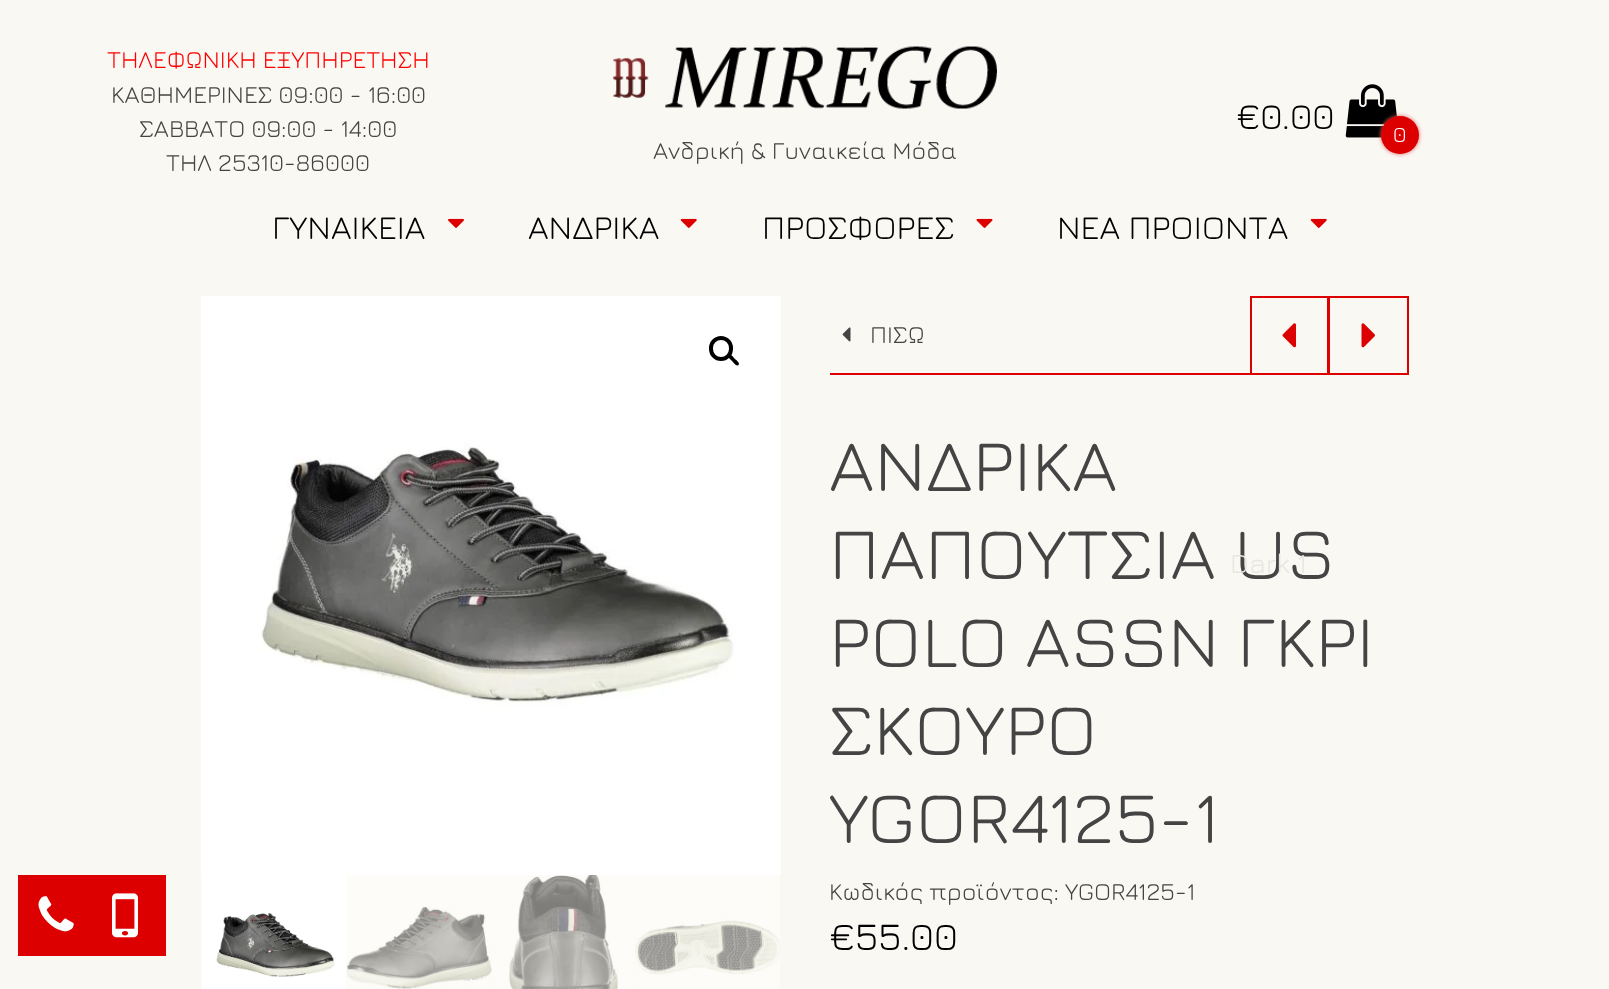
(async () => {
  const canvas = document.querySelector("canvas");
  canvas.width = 1609;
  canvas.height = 989;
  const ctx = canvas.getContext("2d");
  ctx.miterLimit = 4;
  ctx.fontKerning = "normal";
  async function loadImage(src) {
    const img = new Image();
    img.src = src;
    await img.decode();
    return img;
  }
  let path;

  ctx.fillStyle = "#faf8f3";
  ctx.fillRect(0, 0, 1609, 989);
  ctx.fillStyle = "#dc0000";
  ctx.fillRect(18, 875, 148, 81);
  ctx.drawImage(await loadImage("img/1.png"), 38, 896, 36, 36);
  ctx.drawImage(await loadImage("img/2.png"), 112, 893, 26, 45);
  ctx.drawImage(await loadImage("img/3.png"), 1345, 84, 52, 54);
  ctx.fillStyle = "#dc6666";
  ctx.filter = "blur(2px)";
  ctx.beginPath();
  ctx.roundRect(1381, 116, 38, 38, 19);
  ctx.fill();
  ctx.filter = "none";
  ctx.fillStyle = "#dc0000";
  ctx.beginPath();
  ctx.arc(1400, 135, 19, 0, Math.PI * 2);
  ctx.fill();
  ctx.drawImage(await loadImage("img/4.png"), 613, 46, 384, 63);
  ctx.drawImage(await loadImage("img/5.png"), 448, 218, 16, 10);
  ctx.drawImage(await loadImage("img/6.png"), 680, 218, 17, 10);
  ctx.drawImage(await loadImage("img/7.png"), 976, 218, 17, 10);
  ctx.drawImage(await loadImage("img/6.png"), 1310, 218, 17, 10);
  ctx.drawImage(await loadImage("img/8.png"), 201, 296, 580, 579);
  ctx.beginPath();
  ctx.roundRect(711, 338, 20, 21, 10);
  ctx.strokeStyle = "#000000";
  ctx.lineWidth = 4;
  ctx.stroke();
  ctx.fillStyle = "#000000";
  path = new Path2D("M728.5 355C730.5 353 733.5 357.5 735 359C736 360 740.5 363 738.5 365C736.5 367 733.5 362.5 732.5 361.5C731.5 360 726.5 357 728.5 355Z");
  ctx.fill(path);
  ctx.drawImage(await loadImage("img/9.png"), 201, 875, 146, 114);
  ctx.drawImage(await loadImage("img/10.png"), 346, 875, 146, 114);
  ctx.drawImage(await loadImage("img/11.png"), 491, 875, 144, 114);
  ctx.drawImage(await loadImage("img/12.png"), 635, 875, 145, 114);
  ctx.fillStyle = "#dc0000";
  ctx.fillRect(830, 373, 579, 2);
  ctx.drawImage(await loadImage("img/13.png"), 842, 327, 9, 15);
  ctx.fillRect(1250, 296, 159, 2);
  ctx.fillRect(1407, 296, 2, 77);
  ctx.drawImage(await loadImage("img/14.png"), 1361, 323, 14, 25);
  ctx.fillRect(1327, 296, 3, 77);
  ctx.fillRect(1250, 296, 2, 77);
  ctx.drawImage(await loadImage("img/15.png"), 1282, 323, 14, 25);
  ctx.font = "300 24.5px Jura";
  ctx.fillStyle = "#ff0000";
  ctx.fillText("ΤΗΛΕΦΩΝΙΚΗ ΕΞΥΠΗΡΕΤΗΣΗ", 107, 68);
  ctx.fillStyle = "#444444";
  for (const [text, x, y] of [
    ["ΚΑΘΗΜΕΡΙΝΕΣ 09:00 - 16:00", 111, 103],
    ["ΣΑΒΒΑΤΟ 09:00 - 14:00", 139, 137],
    ["ΤΗΛ 25310-86000", 166, 171],
  ]) {
    ctx.fillText(text, x, y);
  }
  ctx.font = "300 36.5px Jura";
  ctx.fillStyle = "#000000";
  ctx.fillText("€0.00", 1236, 129);
  ctx.font = "300 22px Jura";
  ctx.fillStyle = "#ffffff";
  ctx.fillText("0", 1393, 142);
  ctx.font = "300 24.5px Jura";
  ctx.fillStyle = "#444444";
  ctx.fillText("Ανδρική & Γυναικεία Μόδα", 653, 159);
  ctx.font = "300 33.5px Jura";
  ctx.fillStyle = "#000000";
  for (const [text, x, y] of [
    ["ΓΥΝΑΙΚΕΙΑ", 272, 239],
    ["ΑΝΔΡΙΚΑ", 528, 239],
    ["ΠΡΟΣΦΟΡΕΣ", 762, 239],
    ["ΝΕΑ ΠΡΟΙΟΝΤΑ", 1057, 239],
  ]) {
    ctx.fillText(text, x, y);
  }
  ctx.font = "300 24.5px Jura";
  ctx.fillStyle = "#444444";
  ctx.fillText("ΠΙΣΩ", 870, 343);
  ctx.font = "300 73.5px Jura";
  ctx.fillText("ΑΝΔΡΙΚΑ", 829, 491);
  ctx.fillText("ΠΑΠΟΥΤΣΙΑ US", 829, 579);
  ctx.font = "300 28px Jura";
  ctx.fillStyle = "#e8e6e2";
  ctx.fillText("Dark 1", 1230, 573);
  ctx.wordSpacing = "-1px";
  ctx.font = "300 73.5px Jura";
  ctx.fillStyle = "#444444";
  ctx.fillText("POLO ASSN ΓΚΡΙ", 829, 667);
  ctx.wordSpacing = "0px";
  ctx.fillText("ΣΚΟΥΡΟ", 829, 755);
  ctx.fillText("YGOR4125-1", 829, 843);
  ctx.font = "300 24.5px Jura";
  ctx.fillText("Κωδικός προϊόντος: YGOR4125-1", 829, 900);
  ctx.font = "300 39px Jura";
  ctx.fillStyle = "#000000";
  ctx.fillText("€55.00", 829, 950);
})();
